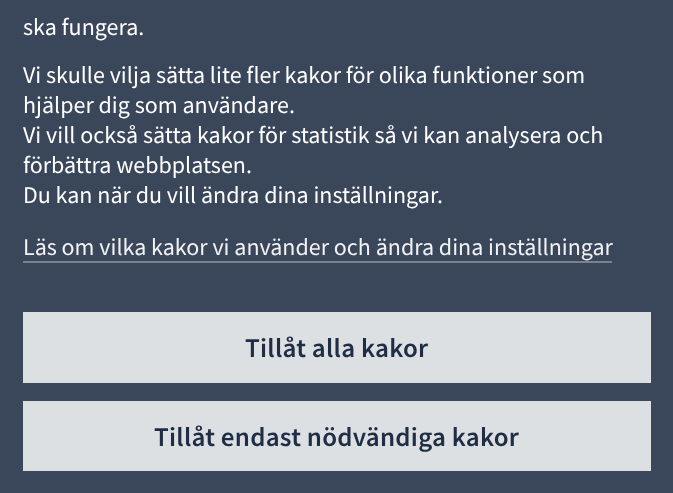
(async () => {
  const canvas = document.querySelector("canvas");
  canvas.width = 673;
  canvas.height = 493;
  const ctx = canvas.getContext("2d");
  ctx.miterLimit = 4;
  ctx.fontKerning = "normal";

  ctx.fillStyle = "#3a465a";
  ctx.fillRect(0, 0, 673, 493);
  for (const [x, y, w, h, color] of [
    [23, 261, 589, 2, "#79818f"],
    [23, 312, 628, 71, "#dde0e3"],
    [23, 401, 628, 70, "#dde0e3"],
  ]) {
    ctx.fillStyle = color;
    ctx.fillRect(x, y, w, h);
  }
  ctx.font = "24px Source Sans Pro";
  ctx.fillStyle = "#ffffff";
  for (const [text, x, y] of [
    ["ska fungera.", 23, 35],
    ["Vi skulle vilja sätta lite fler kakor för olika funktioner som", 23, 83],
    ["hjälper dig som användare.", 23, 113],
    ["Vi vill också sätta kakor för statistik så vi kan analysera och", 23, 143],
    ["förbättra webbplatsen.", 23, 173],
    ["Du kan när du vill ändra dina inställningar.", 23, 203],
  ]) {
    ctx.fillText(text, x, y);
  }
  ctx.fillStyle = "#f2f2f4";
  ctx.fillText("Läs om vilka kakor vi använder och ändra dina inställningar", 23, 255);
  ctx.letterSpacing = "0.25px";
  ctx.font = "600 27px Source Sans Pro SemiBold";
  ctx.fillStyle = "#202e45";
  ctx.fillText("Tillåt alla kakor", 245, 357);
  ctx.fillText("Tillåt endast nödvändiga kakor", 154, 446);
})();
